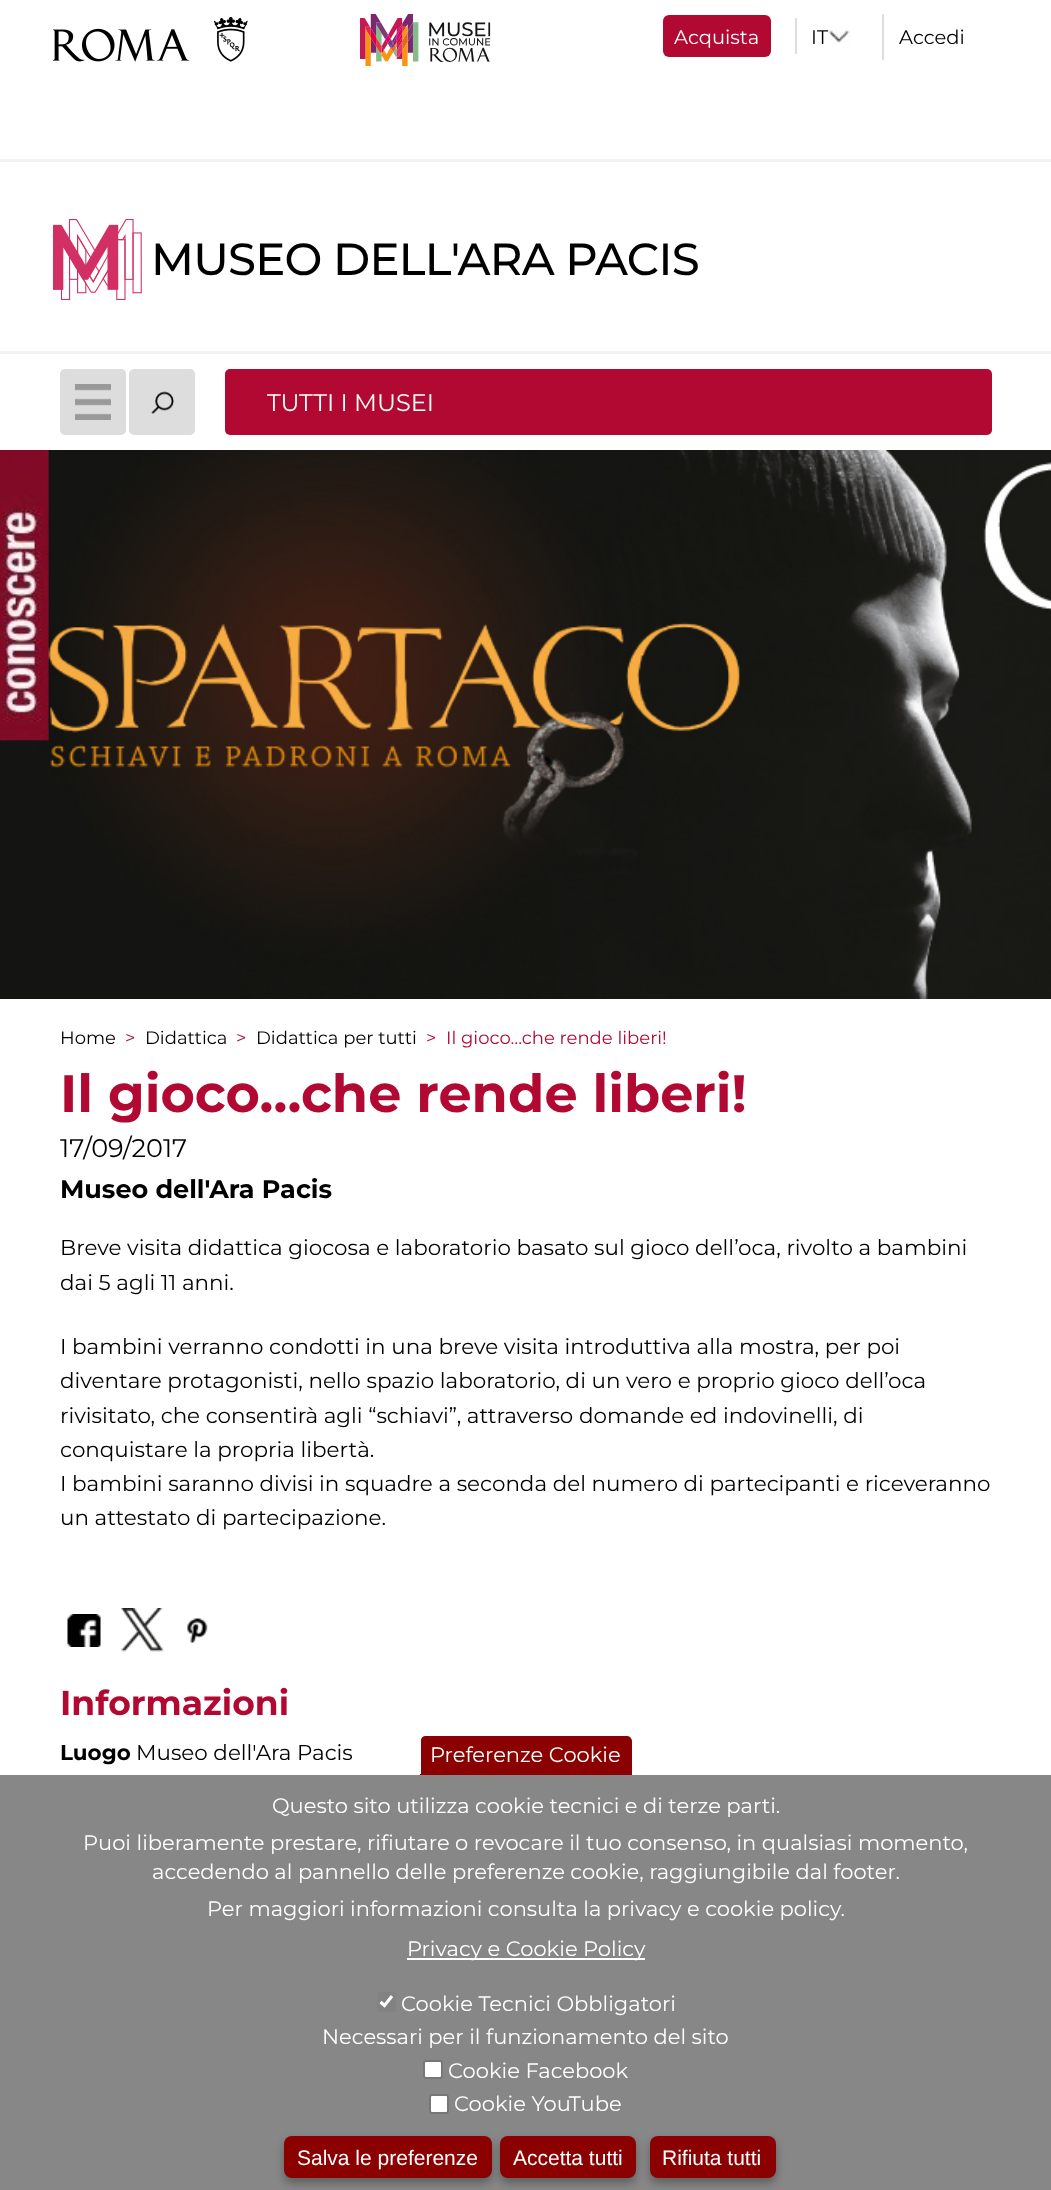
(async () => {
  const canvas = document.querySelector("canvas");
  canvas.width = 1051;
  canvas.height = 2190;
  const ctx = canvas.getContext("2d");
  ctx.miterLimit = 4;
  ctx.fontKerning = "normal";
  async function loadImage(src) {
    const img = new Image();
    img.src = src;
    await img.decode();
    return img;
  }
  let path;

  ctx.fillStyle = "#ffffff";
  ctx.fillRect(0, 0, 1051, 2190);
  ctx.drawImage(await loadImage("img/1.png"), 53, 17, 195, 45);
  ctx.drawImage(await loadImage("img/2.png"), 360, 14, 131, 52);
  ctx.drawImage(await loadImage("img/3.png"), 828, 30, 23, 13);
  ctx.fillStyle = "#b20932";
  ctx.beginPath();
  ctx.roundRect(663, 15, 108, 42, 6);
  ctx.fill();
  for (const [x, y, w, h, color] of [
    [795, 18, 2, 36, "#dddddd"],
    [882, 14, 2, 46, "#dddddd"],
    [0, 159, 1051, 3, "#f2f2f2"],
    [0, 351, 1051, 3, "#f2f2f2"],
  ]) {
    ctx.fillStyle = color;
    ctx.fillRect(x, y, w, h);
  }
  ctx.drawImage(await loadImage("img/4.png"), 53, 219, 89, 81);
  ctx.fillStyle = "#dddddd";
  ctx.beginPath();
  ctx.roundRect(60, 369, 66, 66, 5);
  ctx.fill();
  ctx.drawImage(await loadImage("img/5.png"), 75, 384, 36, 36);
  ctx.beginPath();
  ctx.roundRect(129, 369, 66, 66, 5);
  ctx.fill();
  ctx.drawImage(await loadImage("img/6.png"), 151, 391, 23, 23);
  ctx.fillStyle = "#b20932";
  ctx.beginPath();
  ctx.roundRect(225, 369, 767, 66, 5);
  ctx.fill();
  ctx.drawImage(await loadImage("img/7.png"), 0, 450, 1051, 549);
  ctx.drawImage(await loadImage("img/8.png"), 67, 1614, 34, 33);
  ctx.drawImage(await loadImage("img/9.png"), 121, 1608, 43, 44);
  ctx.drawImage(await loadImage("img/10.png"), 187, 1618, 21, 25);
  ctx.fillStyle = "#878787";
  ctx.fillRect(0, 1775, 1051, 415);
  ctx.fillStyle = "#8b0000";
  ctx.beginPath();
  ctx.roundRect(420, 1736, 212, 39, [5, 5, 0, 0]);
  ctx.fill();
  ctx.fillStyle = "#ffffff";
  path = new Path2D("M425 1732H628C632 1732 635 1736 635 1740V1774H418V1740C418 1736 421 1732 425 1732ZM425 1736H628C630 1736 632 1738 632 1740V1774H421V1740C421 1738 423 1736 425 1736Z");
  ctx.fill(path, "evenodd");
  ctx.fillRect(407, 1958, 238, 2);
  ctx.fillStyle = "#828282";
  ctx.beginPath();
  ctx.roundRect(377, 1992, 19, 20, 3);
  ctx.fill();
  path = new Path2D("M380.5 2002L384.5 2005.5L392 1996");
  ctx.strokeStyle = "#ffffff";
  ctx.lineWidth = 3.1;
  ctx.stroke(path);
  ctx.fillStyle = "#ffffff";
  ctx.beginPath();
  ctx.roundRect(424, 2061, 18, 17, 2);
  ctx.fill();
  ctx.strokeStyle = "#767676";
  ctx.lineWidth = 2;
  ctx.stroke();
  ctx.beginPath();
  ctx.roundRect(430, 2095, 18, 18, 2);
  ctx.fill();
  ctx.stroke();
  ctx.fillStyle = "rgba(0, 0, 0, 0.3)";
  ctx.filter = "blur(4px)";
  ctx.beginPath();
  ctx.roundRect(284, 2141, 208, 42, 8);
  ctx.fill();
  ctx.filter = "none";
  ctx.fillStyle = "#8b0000";
  ctx.beginPath();
  ctx.roundRect(284, 2136, 208, 42, 8);
  ctx.fill();
  ctx.fillStyle = "rgba(0, 0, 0, 0.3)";
  ctx.filter = "blur(4px)";
  ctx.beginPath();
  ctx.roundRect(500, 2141, 136, 42, 8);
  ctx.fill();
  ctx.filter = "none";
  ctx.fillStyle = "#8b0000";
  ctx.beginPath();
  ctx.roundRect(500, 2136, 136, 42, 8);
  ctx.fill();
  ctx.fillStyle = "rgba(0, 0, 0, 0.3)";
  ctx.filter = "blur(4px)";
  ctx.beginPath();
  ctx.roundRect(650, 2141, 126, 42, 8);
  ctx.fill();
  ctx.filter = "none";
  ctx.fillStyle = "#8b0000";
  ctx.beginPath();
  ctx.roundRect(650, 2136, 126, 42, 8);
  ctx.fill();
  ctx.font = "19.5px Montserrat";
  ctx.fillStyle = "#ffffff";
  ctx.fillText("Acquista", 674, 44);
  ctx.fillStyle = "#000000";
  ctx.fillText("IT", 811, 44);
  ctx.fillText("Accedi", 899, 44);
  ctx.letterSpacing = "-0.75px";
  ctx.font = "500 45px Montserrat";
  ctx.fillText("MUSEO DELL'ARA PACIS", 151, 275);
  ctx.letterSpacing = "0px";
  ctx.font = "24px Montserrat";
  ctx.fillStyle = "#ffffff";
  ctx.fillText("TUTTI I MUSEI", 267, 411);
  ctx.font = "18px Montserrat";
  ctx.fillStyle = "#000000";
  ctx.fillText("Home", 60, 1044);
  ctx.fillStyle = "#b20932";
  ctx.fillText(">", 125, 1044);
  ctx.fillStyle = "#000000";
  ctx.fillText("Didattica", 145, 1044);
  ctx.fillStyle = "#b20932";
  ctx.fillText(">", 236, 1044);
  ctx.fillStyle = "#000000";
  ctx.fillText("Didattica per tutti", 256, 1044);
  ctx.fillStyle = "#b20932";
  ctx.fillText(">", 426, 1044);
  ctx.fillText("Il gioco…che rende liberi!", 446, 1044);
  ctx.font = "bold 52.5px Montserrat";
  ctx.fillText("Il gioco…che rende liberi!", 60, 1112);
  ctx.font = "25.5px Montserrat";
  ctx.fillStyle = "#000000";
  ctx.fillText("17/09/2017", 60, 1157);
  ctx.font = "bold 25.5px Montserrat";
  ctx.fillText("Museo dell'Ara Pacis", 60, 1198);
  ctx.font = "21.45px Montserrat";
  for (const [text, x, y] of [
    ["Breve visita didattica giocosa e laboratorio basato sul gioco dell’oca, rivolto a bambini", 60, 1255],
    ["dai 5 agli 11 anni.", 60, 1290],
    ["I bambini verranno condotti in una breve visita introduttiva alla mostra, per poi", 60, 1354],
    ["diventare protagonisti, nello spazio laboratorio, di un vero e proprio gioco dell’oca", 60, 1388],
    ["rivisitato, che consentirà agli “schiavi”, attraverso domande ed indovinelli, di", 60, 1423],
    ["conquistare la propria libertà.", 60, 1457],
    ["I bambini saranno divisi in squadre a seconda del numero di partecipanti e riceveranno", 60, 1491],
    ["un attestato di partecipazione.", 60, 1525],
  ]) {
    ctx.fillText(text, x, y);
  }
  ctx.font = "bold 34.5px Montserrat";
  ctx.fillStyle = "#b20932";
  ctx.fillText("Informazioni", 60, 1715);
  ctx.font = "bold 21.45px Montserrat";
  ctx.fillStyle = "#000000";
  ctx.fillText("Luogo", 60, 1760);
  ctx.font = "21.45px Montserrat";
  ctx.fillText("Museo dell'Ara Pacis", 136, 1760);
  ctx.font = "21px Montserrat";
  ctx.fillStyle = "#ffffff";
  for (const [text, x, y] of [
    ["Preferenze Cookie", 430, 1762],
    ["Questo sito utilizza cookie tecnici e di terze parti.", 272, 1813],
    ["Puoi liberamente prestare, rifiutare o revocare il tuo consenso, in qualsiasi momento,", 83, 1850],
    ["accedendo al pannello delle preferenze cookie, raggiungibile dal footer.", 152, 1879],
    ["Per maggiori informazioni consulta la privacy e cookie policy.", 207, 1916],
    ["Privacy e Cookie Policy", 407, 1956],
    ["Cookie Tecnici Obbligatori", 401, 2011],
    ["Necessari per il funzionamento del sito", 322, 2044],
    ["Cookie Facebook", 448, 2078],
    ["Cookie YouTube", 454, 2111],
  ]) {
    ctx.fillText(text, x, y);
  }
  ctx.font = "21px Liberation Sans";
  for (const [text, x, y] of [
    ["Salva le preferenze", 297, 2165],
    ["Accetta tutti", 513, 2165],
    ["Rifiuta tutti", 662, 2165],
  ]) {
    ctx.fillText(text, x, y);
  }
})();
